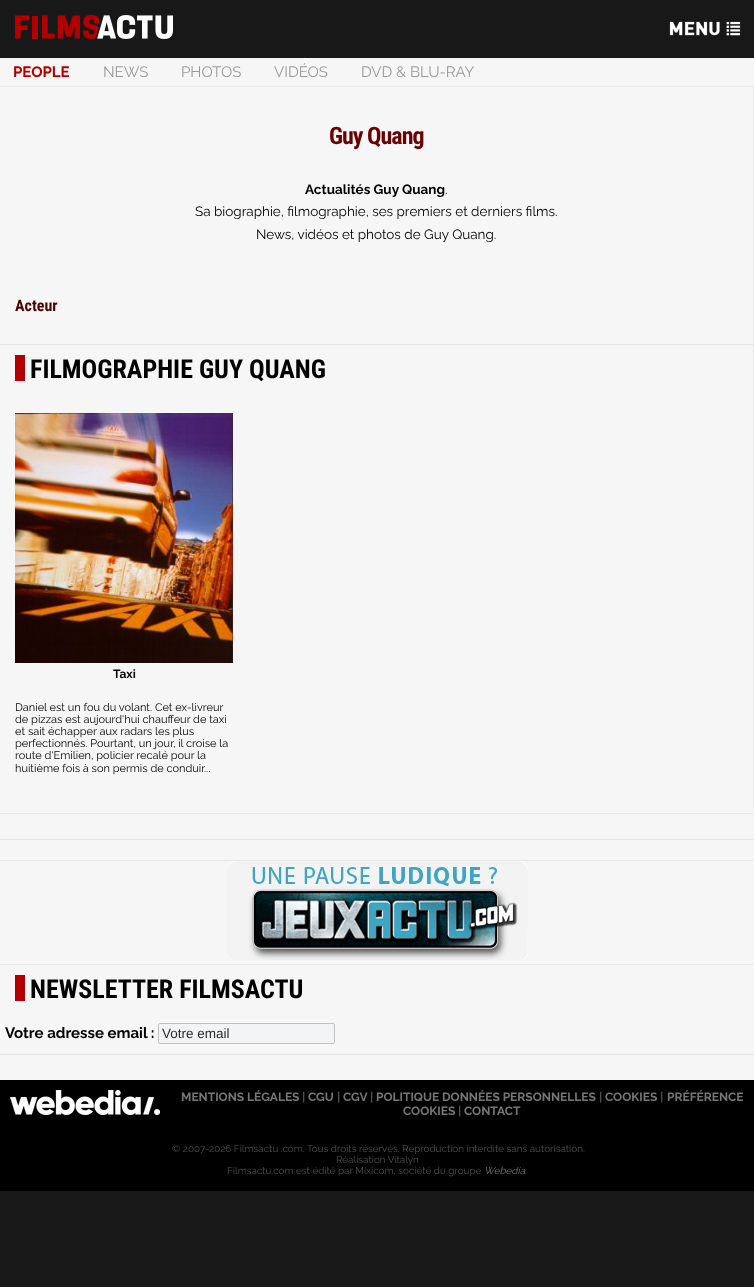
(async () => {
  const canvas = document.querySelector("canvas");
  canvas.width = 754;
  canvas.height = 1287;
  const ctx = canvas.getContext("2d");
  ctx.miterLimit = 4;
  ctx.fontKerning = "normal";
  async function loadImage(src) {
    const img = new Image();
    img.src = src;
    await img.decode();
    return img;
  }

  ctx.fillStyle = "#181818";
  ctx.fillRect(0, 0, 754, 1287);
  ctx.drawImage(await loadImage("img/1.png"), 15, 15, 158, 24);
  ctx.drawImage(await loadImage("img/2.png"), 669, 21, 72, 15);
  for (const [x, y, w, h, color] of [
    [0, 58, 754, 1022, "#f6f6f7"],
    [0, 86, 754, 1, "#eaeaea"],
    [753, 87, 1, 721, "#e6e6e6"],
    [0, 344, 753, 1, "#e6e6e6"],
    [15, 355, 10, 26, "#b20000"],
  ]) {
    ctx.fillStyle = color;
    ctx.fillRect(x, y, w, h);
  }
  ctx.drawImage(await loadImage("img/3.png"), 15, 413, 218, 250);
  for (const [x, y, w, h, color] of [
    [0, 813, 754, 1, "#e6e6e6"],
    [0, 839, 754, 1, "#e6e6e6"],
    [0, 860, 754, 1, "#e6e6e6"],
  ]) {
    ctx.fillStyle = color;
    ctx.fillRect(x, y, w, h);
  }
  ctx.drawImage(await loadImage("img/4.png"), 227, 861, 301, 99);
  ctx.fillRect(0, 964, 754, 1);
  ctx.fillStyle = "#b20000";
  ctx.fillRect(15, 975, 10, 26);
  ctx.fillStyle = "#f2f4f6";
  ctx.beginPath();
  ctx.roundRect(158.5, 1023.5, 176, 20, 1.5);
  ctx.fill();
  ctx.strokeStyle = "#c1c1c1";
  ctx.stroke();
  ctx.fillStyle = "#e6e6e6";
  ctx.fillRect(0, 1054, 754, 1);
  ctx.fillStyle = "#000000";
  ctx.fillRect(0, 1080, 754, 111);
  ctx.drawImage(await loadImage("img/5.png"), 10, 1090, 150, 25);
  ctx.font = "bold 15px Raleway";
  ctx.fillStyle = "#b20000";
  ctx.fillText("PEOPLE", 13, 77);
  ctx.font = "15px Raleway";
  ctx.fillStyle = "#999999";
  for (const [text, x, y] of [
    ["NEWS", 103, 77],
    ["PHOTOS", 181, 77],
    ["VIDÉOS", 274, 77],
    ["DVD & BLU-RAY", 361, 77],
  ]) {
    ctx.fillText(text, x, y);
  }
  ctx.letterSpacing = "-1px";
  ctx.font = "bold 24px Roboto Condensed";
  ctx.fillStyle = "#6b0000";
  ctx.fillText("Guy Quang", 329, 144);
  ctx.letterSpacing = "0px";
  ctx.font = "bold 13.5px Raleway";
  ctx.fillStyle = "#000000";
  ctx.fillText("Actualités Guy Quang", 305, 194);
  ctx.font = "13.5px Raleway";
  for (const [text, x, y] of [
    [".", 445, 194],
    ["Sa biographie, filmographie, ses premiers et derniers films.", 195, 216],
    ["News, vidéos et photos de Guy Quang.", 256, 239],
  ]) {
    ctx.fillText(text, x, y);
  }
  ctx.font = "bold 16px Roboto Condensed";
  ctx.fillStyle = "#4c0000";
  ctx.fillText("Acteur", 15, 311);
  ctx.font = "bold 26px Roboto Condensed";
  ctx.fillStyle = "#000000";
  ctx.fillText("FILMOGRAPHIE GUY QUANG", 30, 378);
  ctx.font = "bold 12px Raleway";
  ctx.fillText("Taxi", 113, 678);
  ctx.font = "11px Raleway";
  for (const [text, x, y] of [
    ["Daniel est un fou du volant. Cet ex-livreur", 15, 711],
    ["de pizzas est aujourd'hui chauffeur de taxi", 15, 723],
    ["et sait échapper aux radars les plus", 15, 735],
    ["perfectionnés. Pourtant, un jour, il croise la", 15, 747],
    ["route d'Emilien, policier recalé pour la", 15, 759],
    ["huitième fois à son permis de conduir...", 15, 772],
  ]) {
    ctx.fillText(text, x, y);
  }
  ctx.font = "bold 26px Roboto Condensed";
  ctx.fillText("NEWSLETTER FILMSACTU", 30, 998);
  ctx.font = "bold 15px Raleway";
  ctx.fillText("Votre adresse email :", 5, 1038);
  ctx.font = "13.5px Liberation Sans";
  ctx.fillStyle = "#2d2d2d";
  ctx.fillText("Votre email", 162, 1038);
  ctx.font = "bold 12px Raleway";
  ctx.fillStyle = "#777777";
  ctx.fillText("MENTIONS LÉGALES", 181, 1101);
  ctx.fillStyle = "#4f4f4f";
  ctx.fillText("|", 302, 1101);
  ctx.fillStyle = "#777777";
  ctx.fillText("CGU", 308, 1101);
  ctx.fillStyle = "#4f4f4f";
  ctx.fillText("|", 337, 1101);
  ctx.fillStyle = "#777777";
  ctx.fillText("CGV", 343, 1101);
  ctx.fillStyle = "#4f4f4f";
  ctx.fillText("|", 370, 1101);
  ctx.fillStyle = "#777777";
  ctx.fillText("POLITIQUE DONNÉES PERSONNELLES", 376, 1101);
  ctx.fillStyle = "#4f4f4f";
  ctx.fillText("|", 599, 1101);
  ctx.fillStyle = "#777777";
  ctx.fillText("COOKIES", 605, 1101);
  ctx.fillStyle = "#4f4f4f";
  ctx.fillText("|", 660, 1101);
  ctx.fillStyle = "#777777";
  ctx.fillText("PRÉFÉRENCE", 667, 1101);
  ctx.fillText("COOKIES", 403, 1115);
  ctx.fillStyle = "#4f4f4f";
  ctx.fillText("|", 458, 1115);
  ctx.fillStyle = "#777777";
  ctx.fillText("CONTACT", 464, 1115);
  ctx.font = "9.9px Raleway";
  ctx.fillStyle = "#4f4f4f";
  for (const [text, x, y] of [
    ["© 2007-2026 Filmsactu .com. Tous droits réservés. Reproduction interdite sans autorisation.", 172, 1152],
    ["Réalisation Vitalyn", 336, 1163],
    ["Filmsactu.com est édité par Mixicom, société du groupe", 227, 1174],
  ]) {
    ctx.fillText(text, x, y);
  }
  ctx.font = "italic 9.9px Raleway";
  ctx.fillStyle = "#777777";
  ctx.fillText("Webedia", 484, 1174);
  ctx.font = "9.9px Raleway";
  ctx.fillStyle = "#4f4f4f";
  ctx.fillText(".", 525, 1174);
})();
